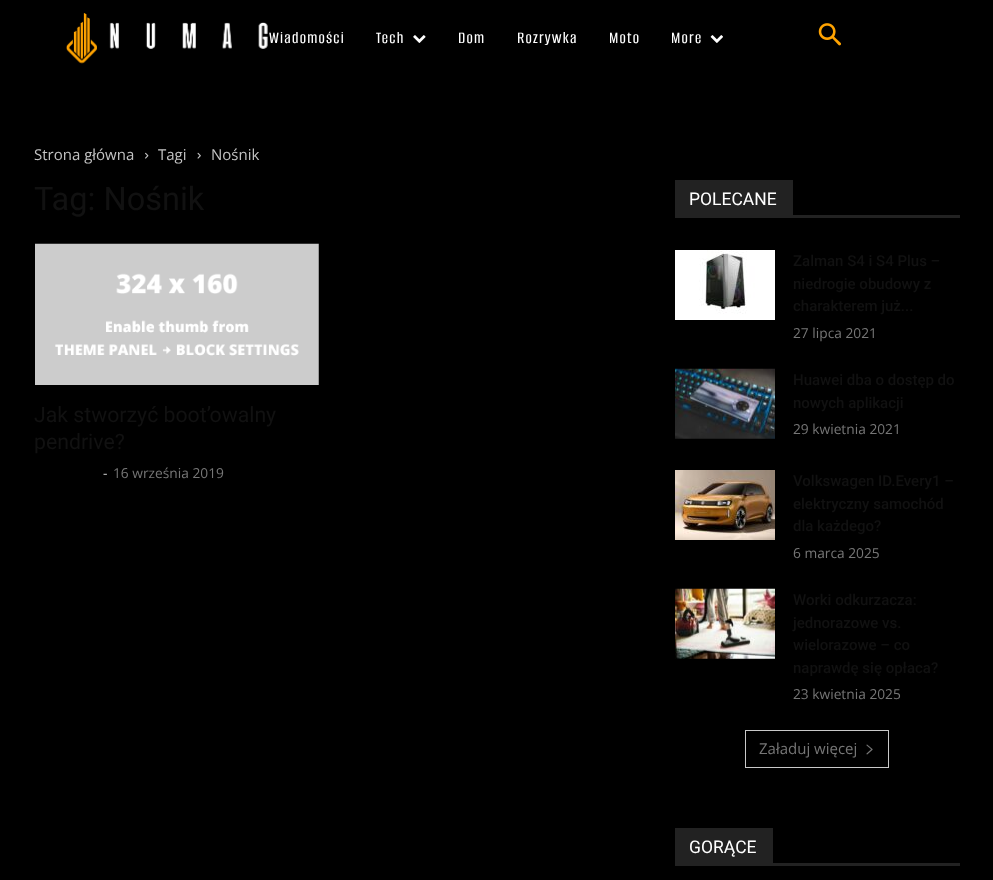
(async () => {
  const canvas = document.querySelector("canvas");
  canvas.width = 993;
  canvas.height = 880;
  const ctx = canvas.getContext("2d");
  ctx.miterLimit = 4;
  ctx.fontKerning = "normal";
  async function loadImage(src) {
    const img = new Image();
    img.src = src;
    await img.decode();
    return img;
  }

  ctx.fillStyle = "#000000";
  ctx.fillRect(0, 0, 993, 880);
  ctx.drawImage(await loadImage("img/1.png"), 66, 13, 202, 51);
  ctx.drawImage(await loadImage("img/2.png"), 413, 35, 13, 8);
  ctx.drawImage(await loadImage("img/3.png"), 710, 35, 13, 8);
  ctx.drawImage(await loadImage("img/4.png"), 818, 23, 23, 23);
  ctx.drawImage(await loadImage("img/5.png"), 145, 152, 4, 7);
  ctx.drawImage(await loadImage("img/6.png"), 197, 152, 4, 7);
  ctx.drawImage(await loadImage("img/7.png"), 35, 243, 284, 142);
  ctx.fillStyle = "#222222";
  ctx.fillRect(675, 215, 285, 3);
  ctx.fillRect(675, 180, 118, 35);
  ctx.drawImage(await loadImage("img/8.png"), 675, 250, 100, 70);
  ctx.drawImage(await loadImage("img/9.png"), 675, 368, 100, 71);
  ctx.drawImage(await loadImage("img/10.png"), 675, 470, 100, 70);
  ctx.drawImage(await loadImage("img/11.png"), 675, 588, 100, 71);
  ctx.strokeStyle = "#c9c9c9";
  ctx.strokeRect(745.5, 730.5, 143, 37);
  ctx.drawImage(await loadImage("img/12.png"), 866, 744, 7, 11);
  ctx.fillRect(675, 863, 285, 3);
  ctx.fillRect(675, 828, 98, 35);
  ctx.letterSpacing = "1.25px";
  ctx.font = "500 17.5px Alumni Sans";
  ctx.fillStyle = "#ffffff";
  for (const [text, x, y] of [
    ["Wiadomości", 269, 43],
    ["Tech", 376, 43],
    ["Dom", 458, 43],
    ["Rozrywka", 517, 43],
    ["Moto", 609, 43],
    ["More", 671, 43],
  ]) {
    ctx.fillText(text, x, y);
  }
  ctx.letterSpacing = "0px";
  ctx.font = "15px Open Sans";
  ctx.fillStyle = "#c3c3c3";
  for (const [text, x, y] of [
    ["Strona główna", 34, 160],
    ["Tagi", 158, 160],
    ["Nośnik", 211, 160],
  ]) {
    ctx.fillText(text, x, y);
  }
  ctx.font = "32.5px Roboto";
  ctx.fillStyle = "#111111";
  ctx.fillText("Tag: Nośnik", 34, 210);
  ctx.font = "21.25px Roboto";
  ctx.fillText("Jak stworzyć boot’owalny", 34, 422);
  ctx.fillText("pendrive?", 34, 449);
  ctx.font = "13.75px Open Sans";
  ctx.fillStyle = "#cccccc";
  ctx.fillText("-", 103, 478);
  ctx.fillStyle = "#767676";
  ctx.fillText("16 września 2019", 113, 478);
  ctx.font = "17.5px Roboto";
  ctx.fillStyle = "#ffffff";
  ctx.fillText("POLECANE", 689, 205);
  ctx.font = "500 15px Roboto";
  ctx.fillStyle = "#111111";
  for (const [text, x, y] of [
    ["Zalman S4 i S4 Plus –", 793, 266],
    ["niedrogie obudowy z", 793, 289],
    ["charakterem już...", 793, 311],
  ]) {
    ctx.fillText(text, x, y);
  }
  ctx.font = "13.75px Open Sans";
  ctx.fillStyle = "#767676";
  ctx.fillText("27 lipca 2021", 793, 338);
  ctx.font = "500 15px Roboto";
  ctx.fillStyle = "#111111";
  ctx.fillText("Huawei dba o dostęp do", 793, 385);
  ctx.fillText("nowych aplikacji", 793, 408);
  ctx.font = "13.75px Open Sans";
  ctx.fillStyle = "#767676";
  ctx.fillText("29 kwietnia 2021", 793, 434);
  ctx.font = "500 15px Roboto";
  ctx.fillStyle = "#111111";
  for (const [text, x, y] of [
    ["Volkswagen ID.Every1 –", 793, 486],
    ["elektryczny samochód", 793, 509],
    ["dla każdego?", 793, 531],
  ]) {
    ctx.fillText(text, x, y);
  }
  ctx.font = "13.75px Open Sans";
  ctx.fillStyle = "#767676";
  ctx.fillText("6 marca 2025", 793, 558);
  ctx.font = "500 15px Roboto";
  ctx.fillStyle = "#111111";
  for (const [text, x, y] of [
    ["Worki odkurzacza:", 793, 605],
    ["jednorazowe vs.", 793, 628],
    ["wielorazowe – co", 793, 650],
    ["naprawdę się opłaca?", 793, 673],
  ]) {
    ctx.fillText(text, x, y);
  }
  ctx.font = "13.75px Open Sans";
  ctx.fillStyle = "#767676";
  ctx.fillText("23 kwietnia 2025", 793, 699);
  ctx.font = "15px Open Sans";
  ctx.fillText("Załaduj więcej", 759, 754);
  ctx.font = "17.5px Roboto";
  ctx.fillStyle = "#ffffff";
  ctx.fillText("GORĄCE", 689, 853);
})();
